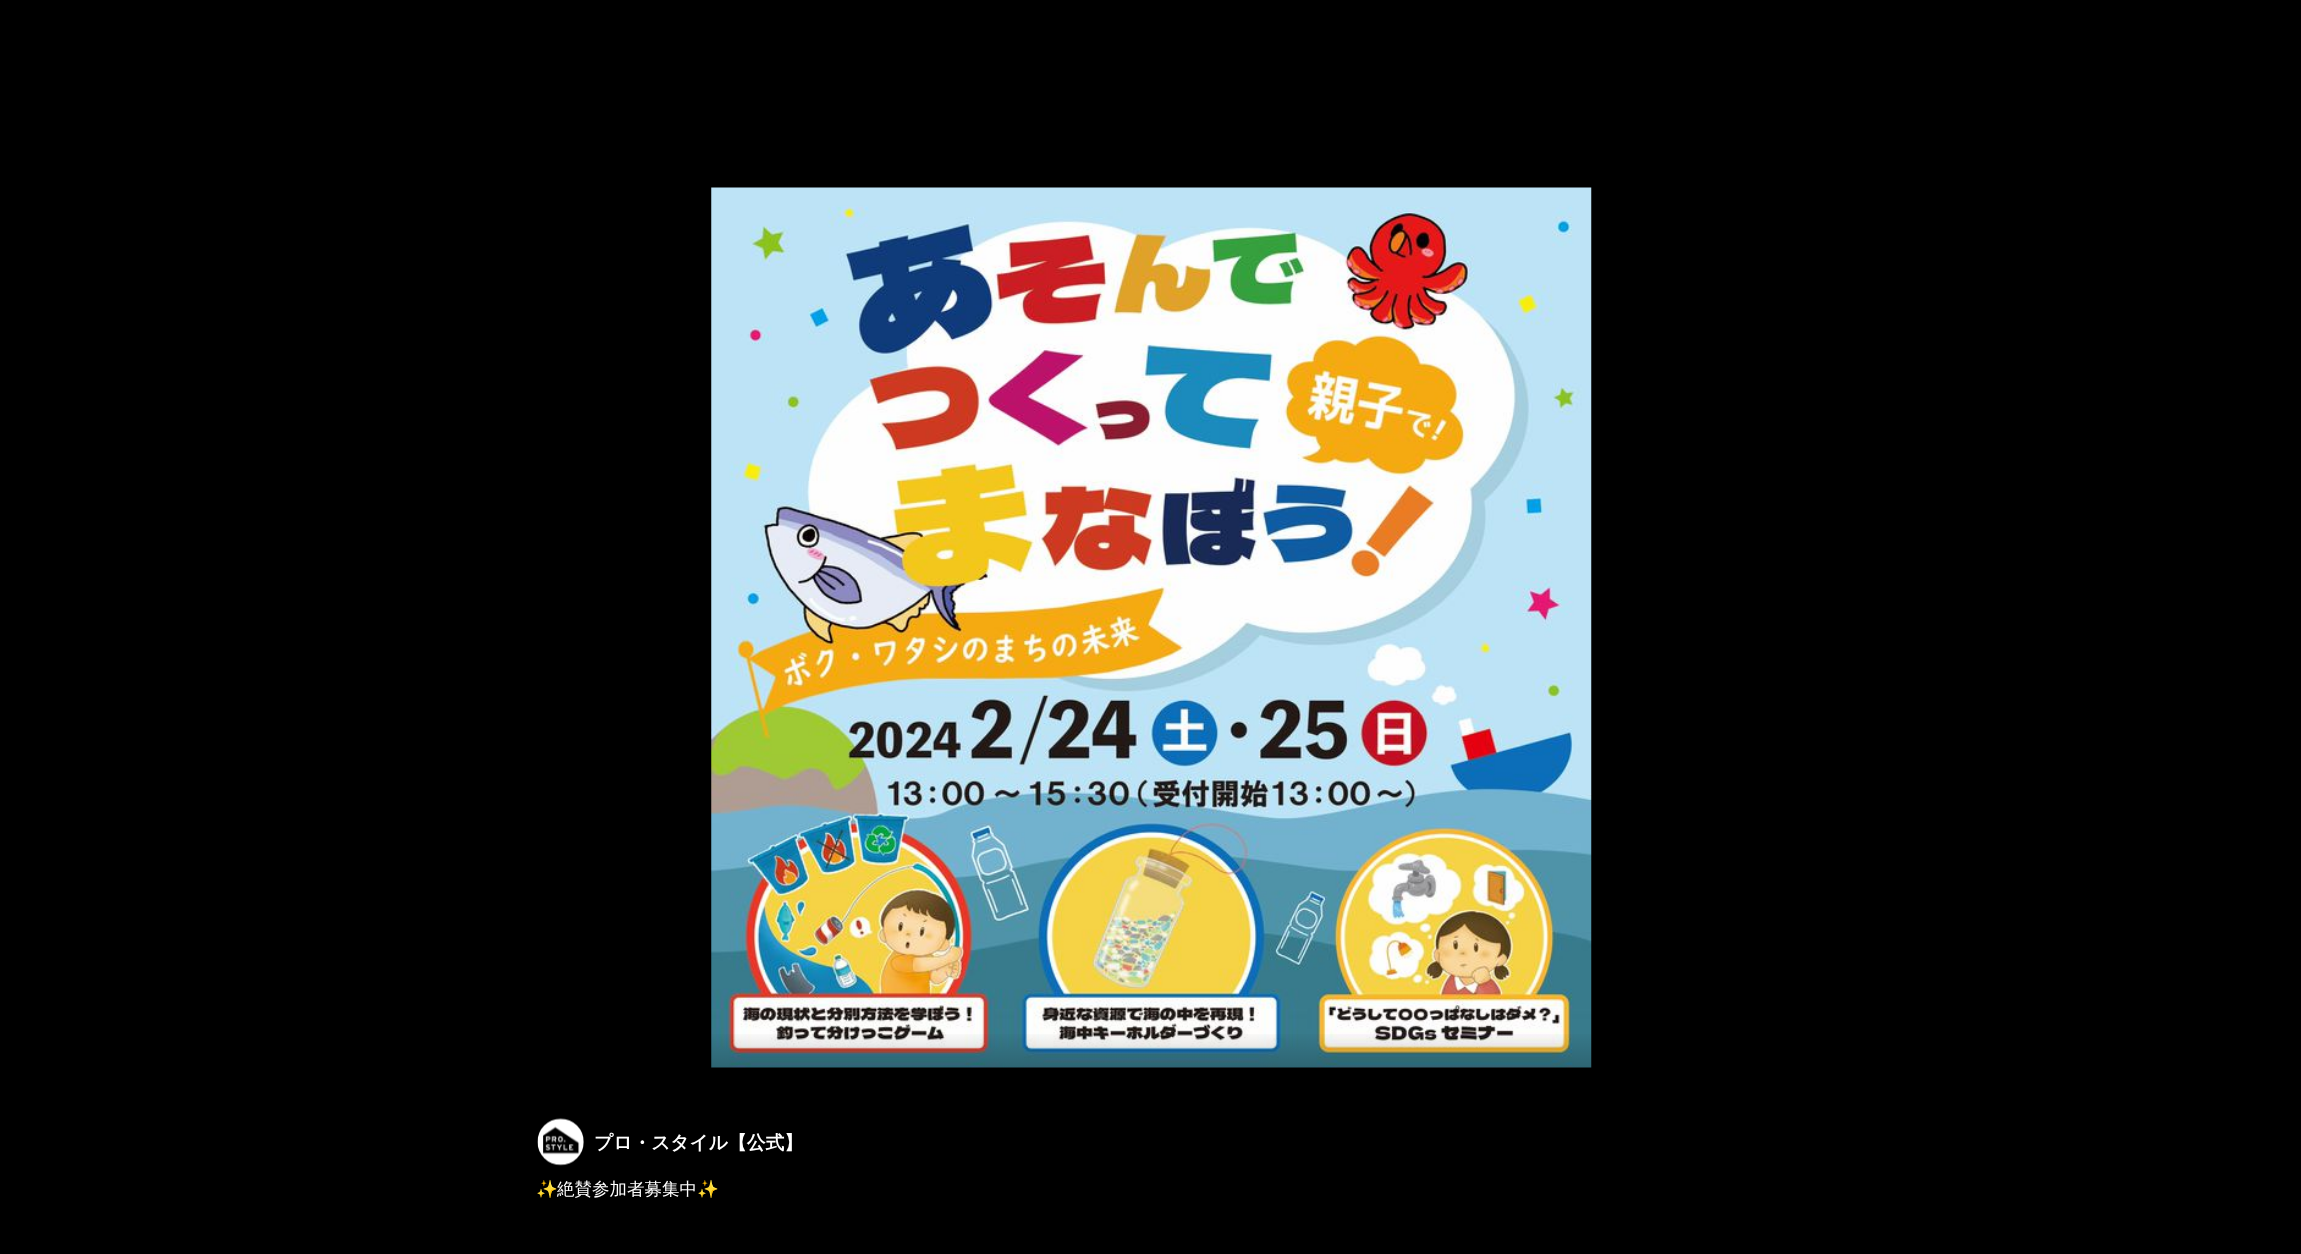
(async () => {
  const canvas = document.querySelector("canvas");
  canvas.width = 2301;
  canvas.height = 1254;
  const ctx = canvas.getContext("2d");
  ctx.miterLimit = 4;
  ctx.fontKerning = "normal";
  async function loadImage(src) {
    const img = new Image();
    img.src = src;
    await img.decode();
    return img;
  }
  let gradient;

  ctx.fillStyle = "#000000";
  ctx.fillRect(0, 0, 2301, 1254);
  ctx.drawImage(await loadImage("img/1.png"), 711, 187, 881, 881);
  gradient = ctx.createLinearGradient(1151, 1030, 1151, 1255);
  gradient.addColorStop(0, "rgba(0, 0, 0, 0)");
  gradient.addColorStop(0.37, "rgba(0, 0, 0, 0.4)");
  gradient.addColorStop(1, "rgba(0, 0, 0, 0.4)");
  ctx.fillStyle = gradient;
  ctx.fillRect(711, 1034, 881, 34);
  ctx.drawImage(await loadImage("img/2.png"), 537, 1118, 47, 48);
  ctx.font = "bold 18.75px WenQuanYi Zen Hei";
  ctx.fillStyle = "#ffffff";
  ctx.fillText("プロ・スタイル【公式】", 594, 1149);
  ctx.font = "17.5px Noto Color Emoji";
  ctx.fillText("✨️", 536, 1195);
  ctx.font = "500 17.5px WenQuanYi Zen Hei";
  ctx.fillText("絶賛参加者募集中", 557, 1195);
  ctx.font = "17.5px Noto Color Emoji";
  ctx.fillText("✨️", 697, 1195);
})();
